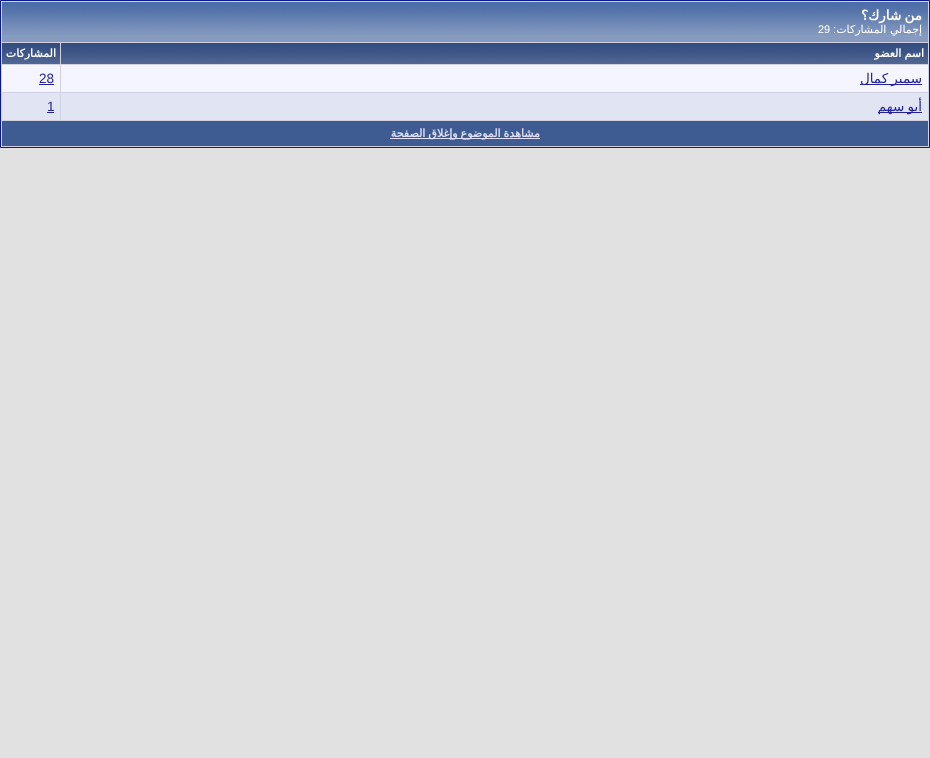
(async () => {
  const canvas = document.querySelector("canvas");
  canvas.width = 930;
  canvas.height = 758;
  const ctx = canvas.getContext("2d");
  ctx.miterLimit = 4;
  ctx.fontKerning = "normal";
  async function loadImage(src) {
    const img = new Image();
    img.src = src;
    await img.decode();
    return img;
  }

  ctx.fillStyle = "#e1e1e2";
  ctx.fillRect(0, 0, 930, 758);
  ctx.fillStyle = "#d1d1e1";
  ctx.beginPath();
  ctx.rect(0.5, 0.5, 929, 147);
  ctx.fill();
  ctx.strokeStyle = "#0b198c";
  ctx.stroke();
  ctx.fillStyle = "#869bbf";
  ctx.fillRect(2, 35, 926, 7);
  ctx.drawImage(await loadImage("img/1.png"), 2, 2, 926, 33);
  ctx.drawImage(await loadImage("img/2.png"), 61, 43, 867, 21);
  ctx.drawImage(await loadImage("img/3.png"), 2, 43, 58, 21);
  for (const [x, y, w, h, color] of [
    [61, 65, 867, 27, "#f5f5ff"],
    [860, 84, 62, 1, "#22229c"],
    [2, 65, 58, 27, "#f5f5ff"],
    [39, 84, 15, 1, "#22229c"],
    [61, 93, 867, 27, "#e1e4f2"],
    [878, 112, 44, 1, "#22229c"],
    [2, 93, 58, 27, "#e1e4f2"],
    [47, 112, 7, 1, "#22229c"],
    [2, 121, 926, 25, "#3e5c92"],
    [390, 138, 150, 1, "#e0e0f6"],
  ]) {
    ctx.fillStyle = color;
    ctx.fillRect(x, y, w, h);
  }
  ctx.wordSpacing = "-1px";
  ctx.direction = "rtl";
  ctx.font = "bold 13.5px DejaVu Sans";
  ctx.fillStyle = "#ffffff";
  ctx.fillText("من شارك؟", 922, 20);
  ctx.wordSpacing = "0px";
  ctx.font = "11px DejaVu Sans";
  ctx.fillText("إجمالي المشاركات", 922, 33);
  ctx.font = "11px Liberation Sans";
  ctx.fillText(":", 836, 33);
  ctx.direction = "ltr";
  ctx.fillText("29", 818, 33);
  ctx.wordSpacing = "-0.5px";
  ctx.direction = "rtl";
  ctx.font = "bold 11px DejaVu Sans";
  ctx.fillText("اسم العضو", 924, 57);
  ctx.wordSpacing = "0px";
  ctx.fillText("المشاركات", 56, 57);
  ctx.wordSpacing = "-1px";
  ctx.font = "13.5px DejaVu Sans";
  ctx.fillStyle = "#22229c";
  ctx.fillText("سمير كمال", 922, 83);
  ctx.wordSpacing = "0px";
  ctx.direction = "ltr";
  ctx.font = "13.5px Liberation Sans";
  ctx.fillText("28", 39, 83);
  ctx.wordSpacing = "-1px";
  ctx.direction = "rtl";
  ctx.font = "13.5px DejaVu Sans";
  ctx.fillText("أبو سهم", 922, 111);
  ctx.wordSpacing = "0px";
  ctx.direction = "ltr";
  ctx.font = "13.5px Liberation Sans";
  ctx.fillText("1", 47, 111);
  ctx.wordSpacing = "-0.5px";
  ctx.direction = "rtl";
  ctx.font = "bold 11px DejaVu Sans";
  ctx.fillStyle = "#e0e0f6";
  ctx.fillText("مشاهدة الموضوع وإغلاق الصفحة", 540, 137);
})();
